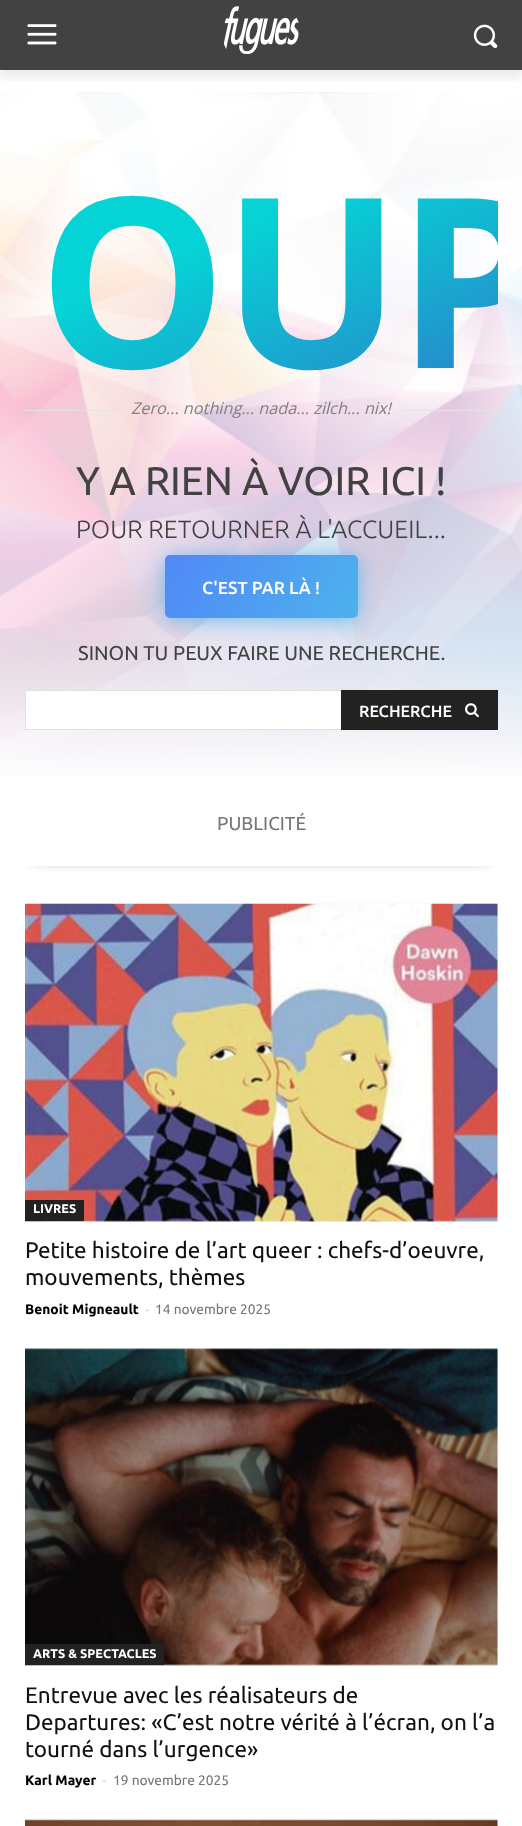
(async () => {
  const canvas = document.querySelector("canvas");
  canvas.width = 522;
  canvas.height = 1826;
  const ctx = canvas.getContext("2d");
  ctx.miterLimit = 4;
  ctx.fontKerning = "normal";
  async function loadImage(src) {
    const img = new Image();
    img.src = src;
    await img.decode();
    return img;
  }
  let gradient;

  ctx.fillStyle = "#ffffff";
  ctx.fillRect(0, 0, 522, 1826);
  ctx.fillStyle = "#424242";
  ctx.fillRect(0, 0, 522, 70);
  ctx.drawImage(await loadImage("img/1.png"), 27, 24, 30, 21);
  ctx.drawImage(await loadImage("img/2.png"), 224, 6, 75, 48);
  ctx.drawImage(await loadImage("img/3.png"), 473, 24, 25, 25);
  ctx.drawImage(await loadImage("img/4.png"), 0, 92, 522, 686);
  gradient = ctx.createLinearGradient(261, 780, 261, 93);
  gradient.addColorStop(0, "#ffffff");
  gradient.addColorStop(0.22, "rgba(255, 255, 255, 0.61)");
  gradient.addColorStop(1, "rgba(255, 255, 255, 0.48)");
  ctx.fillStyle = gradient;
  ctx.fillRect(0, 93, 522, 685);
  ctx.save();
  ctx.beginPath();
  ctx.rect(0, 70, 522, 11);
  ctx.clip();
  ctx.fillStyle = "rgba(0, 0, 0, 0.08)";
  ctx.filter = "blur(5px)";
  ctx.beginPath();
  ctx.rect(0, 8, 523, 70);
  ctx.fill();
  ctx.filter = "none";
  ctx.restore();
  ctx.fillStyle = "#e3e3e3";
  ctx.fillRect(25, 410, 94, 1);
  ctx.fillRect(404, 410, 94, 1);
  ctx.fillStyle = "rgba(77, 178, 236, 0.8)";
  ctx.filter = "blur(10px)";
  ctx.beginPath();
  ctx.roundRect(165, 558, 193, 62, 5);
  ctx.fill();
  ctx.filter = "none";
  gradient = ctx.createLinearGradient(347, 636, 176, 537);
  gradient.addColorStop(0, "#4db2ec");
  gradient.addColorStop(1, "#5188f7");
  ctx.fillStyle = gradient;
  ctx.beginPath();
  ctx.roundRect(165, 555, 193, 63, 5);
  ctx.fill();
  ctx.fillStyle = "#ffffff";
  ctx.fillRect(26, 691, 315, 38);
  ctx.strokeStyle = "#e1e1e1";
  ctx.strokeRect(25.5, 690.5, 472, 39);
  ctx.fillStyle = "#222222";
  ctx.fillRect(341, 690, 157, 40);
  ctx.drawImage(await loadImage("img/5.png"), 465, 703, 14, 15);
  ctx.save();
  ctx.beginPath();
  ctx.rect(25, 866, 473, 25);
  ctx.clip();
  ctx.fillStyle = "#7c7c7c";
  ctx.filter = "blur(6px)";
  ctx.beginPath();
  ctx.roundRect(28, 839, 467, 21, 10.5);
  ctx.fill();
  ctx.filter = "none";
  ctx.restore();
  ctx.drawImage(await loadImage("img/6.png"), 25, 903, 473, 319);
  ctx.drawImage(await loadImage("img/7.png"), 25, 903, 473, 319);
  ctx.fillRect(25, 1200, 59, 21);
  ctx.drawImage(await loadImage("img/8.png"), 25, 1348, 473, 318);
  ctx.drawImage(await loadImage("img/9.png"), 25, 1348, 473, 318);
  ctx.fillRect(25, 1644, 139, 21);
  ctx.drawImage(await loadImage("img/10.png"), 25, 1819, 473, 7);
  ctx.drawImage(await loadImage("img/11.png"), 25, 1819, 473, 7);
  ctx.save();
  ctx.beginPath();
  ctx.rect(25, 155, 473, 264);
  ctx.clip();
  ctx.letterSpacing = "-5px";
  ctx.font = "bold 237.5px Open Sans";
  gradient = ctx.createLinearGradient(279, 42, 488, 511);
  gradient.addColorStop(0.3, "#06d3d5");
  gradient.addColorStop(0.8, "#2a81cb");
  ctx.fillStyle = gradient;
  ctx.fillText("OUP", 38, 368);
  ctx.restore();
  ctx.font = "italic 16.25px Open Sans";
  ctx.fillStyle = "#808080";
  ctx.fillText("Zero... nothing... nada... zilch... nix!", 131, 414);
  ctx.font = "40px Ubuntu";
  ctx.fillStyle = "#424242";
  ctx.fillText("Y A RIEN À VOIR ICI !", 76, 495);
  ctx.font = "300 25px Ubuntu";
  ctx.fillText("POUR RETOURNER À L'ACCUEIL...", 76, 538);
  ctx.font = "500 17.5px Ubuntu";
  ctx.fillStyle = "#ffffff";
  ctx.fillText("C'EST PAR LÀ !", 202, 594);
  ctx.font = "20px Ubuntu";
  ctx.fillStyle = "#424242";
  ctx.fillText("SINON TU PEUX FAIRE UNE RECHERCHE.", 78, 660);
  ctx.font = "500 16.25px Ubuntu";
  ctx.fillStyle = "#ffffff";
  ctx.fillText("RECHERCHE", 359, 717);
  ctx.font = "18.75px Ubuntu";
  ctx.fillStyle = "#767676";
  ctx.fillText("PUBLICITÉ", 217, 830);
  ctx.font = "bold 12.5px Ubuntu";
  ctx.fillStyle = "#ffffff";
  ctx.fillText("LIVRES", 33, 1213);
  ctx.font = "22.5px Ubuntu";
  ctx.fillStyle = "#111111";
  ctx.fillText("Petite histoire de l’art queer : chefs-d’oeuvre,", 25, 1258);
  ctx.fillText("mouvements, thèmes", 25, 1285);
  ctx.font = "bold 13.75px Ubuntu";
  ctx.fillStyle = "#000000";
  ctx.fillText("Benoit Migneault", 25, 1314);
  ctx.font = "13.75px Open Sans";
  ctx.fillStyle = "#cccccc";
  ctx.fillText("-", 145, 1314);
  ctx.font = "13.75px Ubuntu";
  ctx.fillStyle = "#767676";
  ctx.fillText("14 novembre 2025", 155, 1314);
  ctx.font = "bold 12.5px Ubuntu";
  ctx.fillStyle = "#ffffff";
  ctx.fillText("ARTS & SPECTACLES", 33, 1658);
  ctx.font = "22.5px Ubuntu";
  ctx.fillStyle = "#111111";
  for (const [text, x, y] of [
    ["Entrevue avec les réalisateurs de", 25, 1703],
    ["Departures: «C’est notre vérité à l’écran, on l’a", 25, 1730],
    ["tourné dans l’urgence»", 25, 1757],
  ]) {
    ctx.fillText(text, x, y);
  }
  ctx.font = "bold 13.75px Ubuntu";
  ctx.fillStyle = "#000000";
  ctx.fillText("Karl Mayer", 25, 1785);
  ctx.font = "13.75px Open Sans";
  ctx.fillStyle = "#cccccc";
  ctx.fillText("-", 102, 1785);
  ctx.font = "13.75px Ubuntu";
  ctx.fillStyle = "#767676";
  ctx.fillText("19 novembre 2025", 113, 1785);
})();
